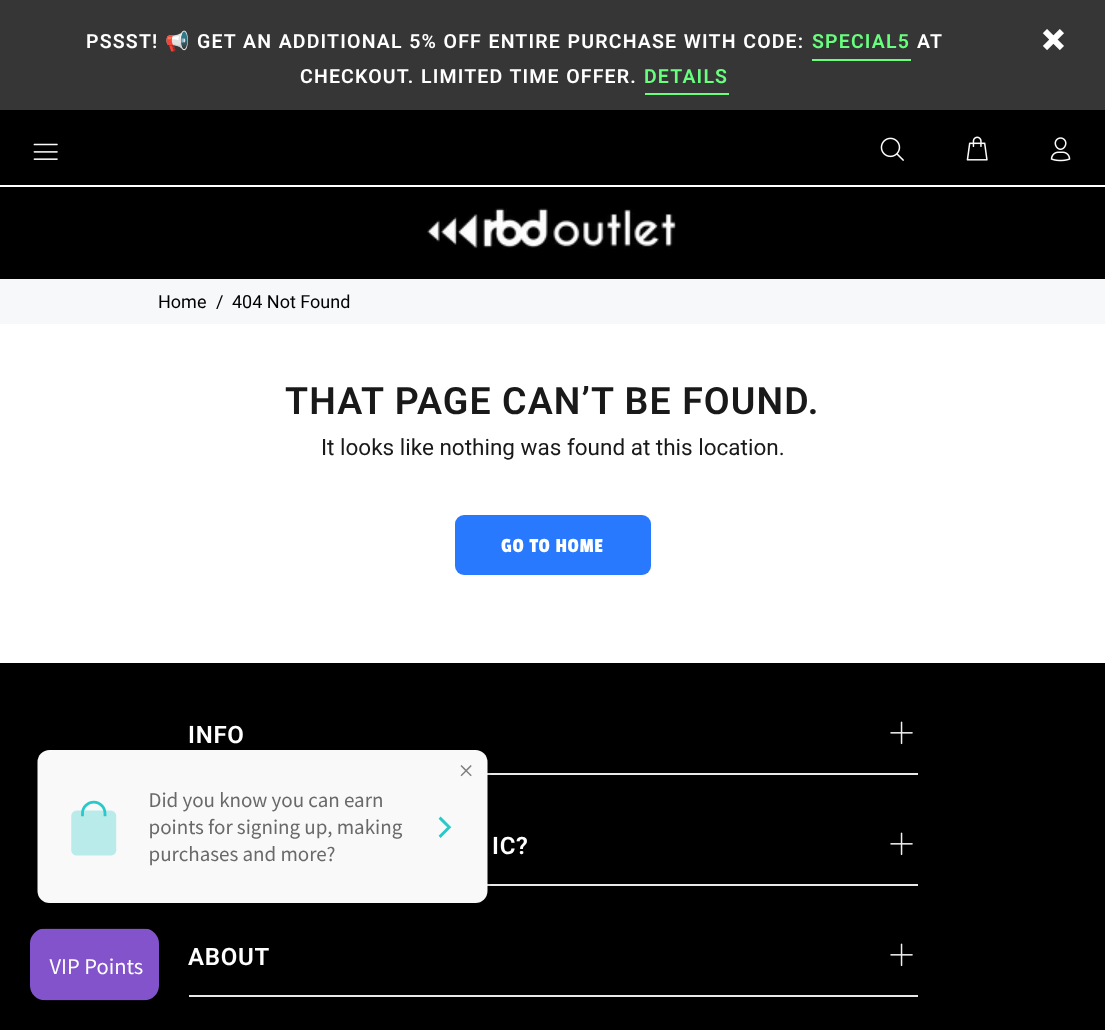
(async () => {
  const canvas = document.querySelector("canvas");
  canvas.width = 1105;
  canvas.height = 1030;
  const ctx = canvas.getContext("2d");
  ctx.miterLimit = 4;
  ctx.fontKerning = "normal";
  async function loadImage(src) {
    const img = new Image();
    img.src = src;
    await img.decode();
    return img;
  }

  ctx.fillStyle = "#ffffff";
  ctx.fillRect(0, 0, 1105, 1030);
  for (const [x, y, w, h, color] of [
    [0, 110, 1105, 169, "#000000"],
    [0, 0, 1105, 110, "#363636"],
    [812, 59, 99, 2, "#68ff7e"],
    [645, 93, 84, 2, "#68ff7e"],
  ]) {
    ctx.fillStyle = color;
    ctx.fillRect(x, y, w, h);
  }
  ctx.drawImage(await loadImage("img/1.png"), 1042, 29, 22, 22);
  ctx.drawImage(await loadImage("img/2.png"), 33, 143, 25, 17);
  ctx.drawImage(await loadImage("img/3.png"), 880, 137, 24, 24);
  ctx.drawImage(await loadImage("img/4.png"), 966, 136, 22, 25);
  ctx.drawImage(await loadImage("img/5.png"), 1050, 137, 21, 25);
  ctx.fillStyle = "#ffffff";
  ctx.fillRect(0, 185, 1105, 2);
  ctx.drawImage(await loadImage("img/6.png"), 427, 208, 249, 41);
  ctx.fillStyle = "#f7f8fa";
  ctx.fillRect(0, 279, 1105, 45);
  ctx.fillStyle = "#2879fe";
  ctx.beginPath();
  ctx.roundRect(455, 515, 196, 60, 9);
  ctx.fill();
  ctx.fillStyle = "#000000";
  ctx.fillRect(0, 663, 1105, 367);
  ctx.fillStyle = "#e9e7e7";
  ctx.fillRect(487, 773, 431, 2);
  ctx.drawImage(await loadImage("img/7.png"), 890, 721, 23, 24);
  ctx.fillRect(487, 884, 431, 2);
  ctx.drawImage(await loadImage("img/7.png"), 890, 832, 23, 24);
  ctx.fillRect(189, 995, 729, 2);
  ctx.drawImage(await loadImage("img/7.png"), 890, 943, 23, 24);
  ctx.drawImage(await loadImage("img/8.png"), 37, 750, 454, 153);
  ctx.drawImage(await loadImage("img/9.png"), 30, 928, 129, 73);
  ctx.letterSpacing = "1.17px";
  ctx.font = "600 19.5px Roboto";
  ctx.fillStyle = "#ffffff";
  ctx.fillText("PSSST!", 86, 48);
  ctx.font = "bold 19.5px Noto Color Emoji";
  ctx.fillText("📢", 165, 48);
  ctx.wordSpacing = "0.5px";
  ctx.font = "600 19.5px Roboto";
  ctx.fillText("GET AN ADDITIONAL 5% OFF ENTIRE PURCHASE WITH CODE:", 197, 48);
  ctx.wordSpacing = "0px";
  ctx.fillStyle = "#68ff7e";
  ctx.fillText("SPECIAL5", 812, 48);
  ctx.fillStyle = "#ffffff";
  ctx.fillText("AT", 917, 48);
  ctx.wordSpacing = "0.5px";
  ctx.fillText("CHECKOUT. LIMITED TIME OFFER.", 300, 83);
  ctx.wordSpacing = "0px";
  ctx.fillStyle = "#68ff7e";
  ctx.fillText("DETAILS", 644, 83);
  ctx.letterSpacing = "0px";
  ctx.font = "18px Roboto";
  ctx.fillStyle = "#000000";
  for (const [text, x, y] of [
    ["Home", 158, 308],
    ["/", 216, 308],
    ["404 Not Found", 232, 308],
  ]) {
    ctx.fillText(text, x, y);
  }
  ctx.letterSpacing = "1.1px";
  ctx.font = "600 37.5px Roboto";
  ctx.fillStyle = "#191919";
  ctx.fillText("THAT PAGE CAN’T BE FOUND.", 285, 414);
  ctx.letterSpacing = "0px";
  ctx.font = "22.5px Roboto";
  ctx.fillText("It looks like nothing was found at this location.", 321, 455);
  ctx.letterSpacing = "0.6px";
  ctx.font = "21px Passion One";
  ctx.fillStyle = "#ffffff";
  ctx.fillText("GO TO HOME", 501, 552);
  ctx.letterSpacing = "0.75px";
  ctx.font = "600 24px Roboto";
  for (const [text, x, y] of [
    ["INFO", 188, 743],
    ["IC?", 492, 854],
    ["ABOUT", 188, 965],
  ]) {
    ctx.fillText(text, x, y);
  }
})();
